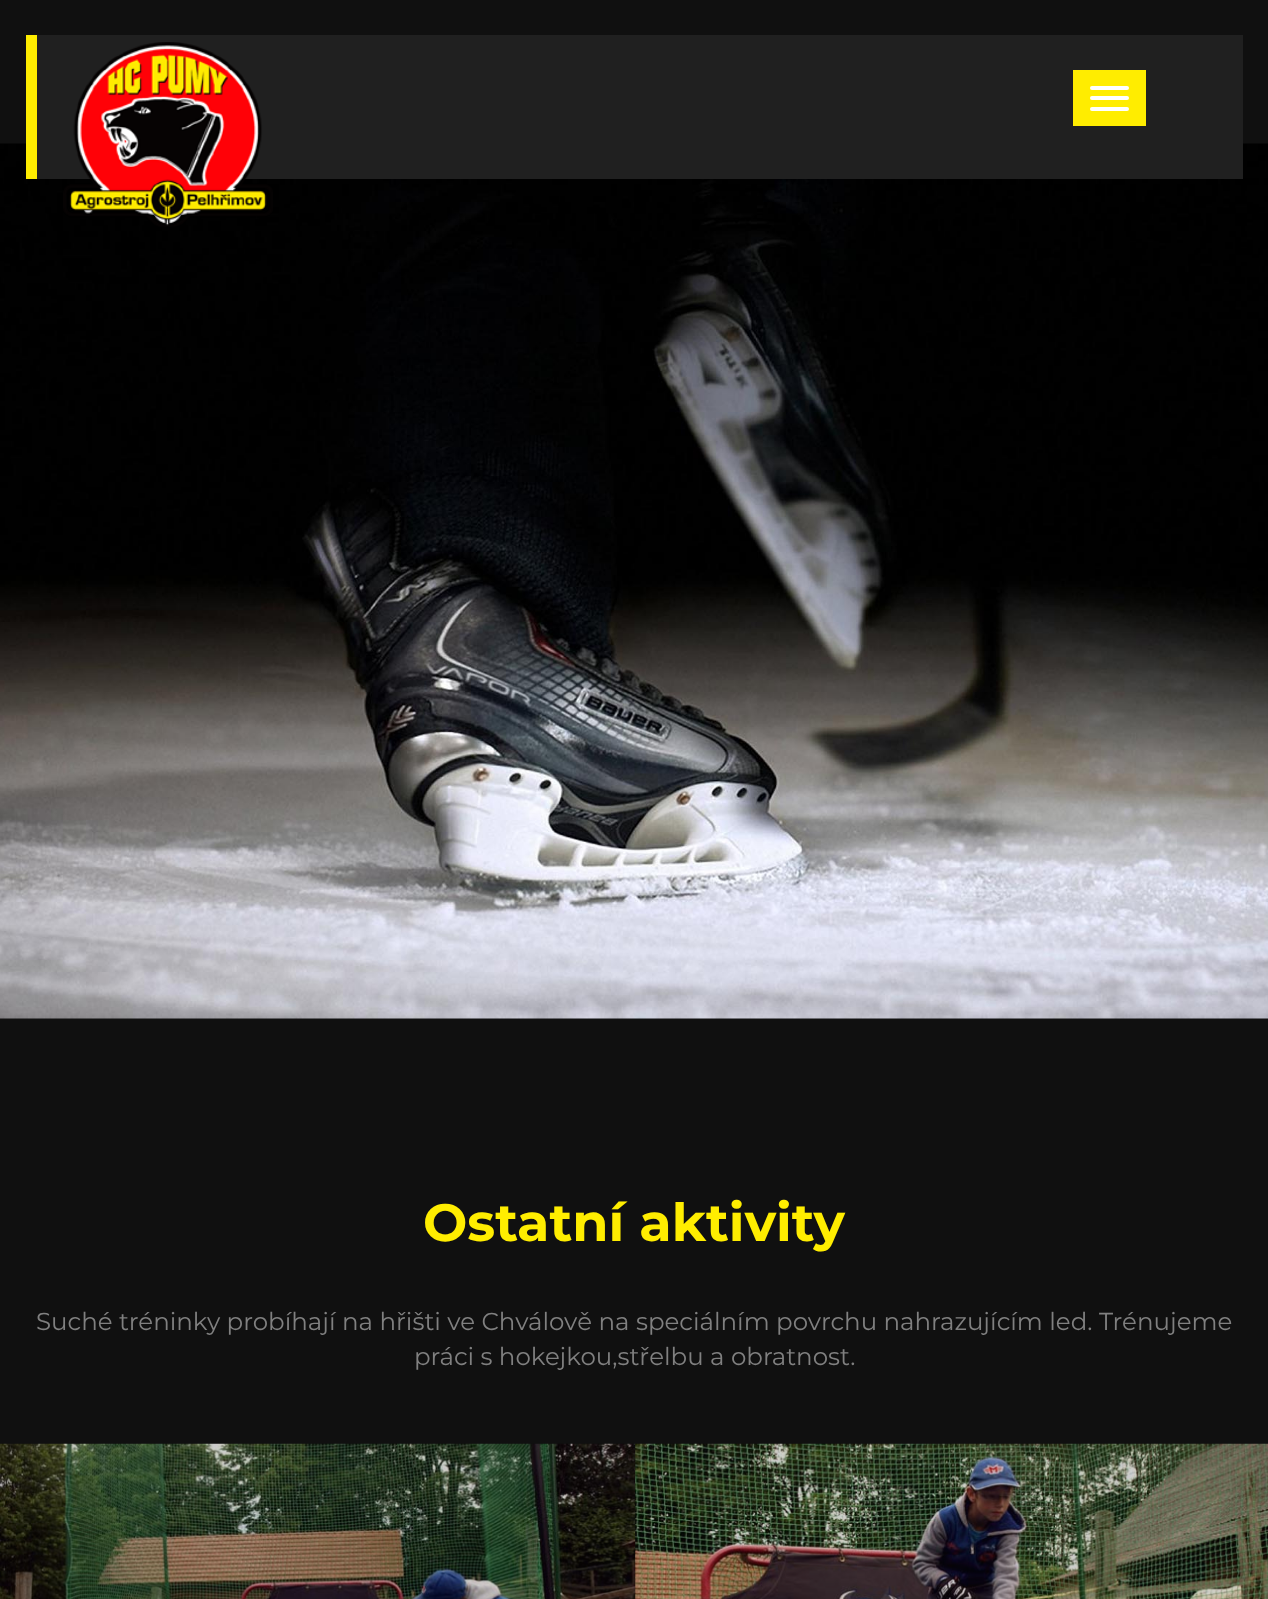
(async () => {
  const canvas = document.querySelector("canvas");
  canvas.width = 1268;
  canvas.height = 1599;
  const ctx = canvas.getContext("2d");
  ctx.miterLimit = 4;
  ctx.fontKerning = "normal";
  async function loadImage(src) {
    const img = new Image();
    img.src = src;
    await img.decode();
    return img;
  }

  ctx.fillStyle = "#101010";
  ctx.fillRect(0, 0, 1268, 1599);
  ctx.drawImage(await loadImage("img/2.png"), 0, 143, 1268, 876);
  ctx.fillStyle = "#202020";
  ctx.fillRect(37, 35, 1206, 144);
  ctx.fillStyle = "#ffed00";
  ctx.fillRect(26, 35, 11, 144);
  ctx.drawImage(await loadImage("img/1.png"), 63, 42, 210, 185);
  ctx.fillRect(1073, 70, 73, 56);
  ctx.fillStyle = "#ffffff";
  ctx.beginPath();
  ctx.roundRect(1090, 86, 39, 4, 2);
  ctx.fill();
  ctx.beginPath();
  ctx.roundRect(1090, 96, 39, 4, 2);
  ctx.fill();
  ctx.beginPath();
  ctx.roundRect(1090, 107, 39, 4, 2);
  ctx.fill();
  ctx.drawImage(await loadImage("img/3.png"), 0, 1443, 636, 156);
  ctx.drawImage(await loadImage("img/4.png"), 635, 1443, 633, 156);
  ctx.font = "bold 52.5px Montserrat";
  ctx.fillStyle = "#ffed00";
  ctx.fillText("Ostatní aktivity", 423, 1241);
  ctx.font = "24.5px Montserrat";
  ctx.fillStyle = "#808080";
  ctx.fillText("Suché tréninky probíhají na hřišti ve Chválově na speciálním povrchu nahrazujícím led. Trénujeme", 36, 1330);
  ctx.fillText("práci s hokejkou,střelbu a obratnost.", 414, 1365);
})();
